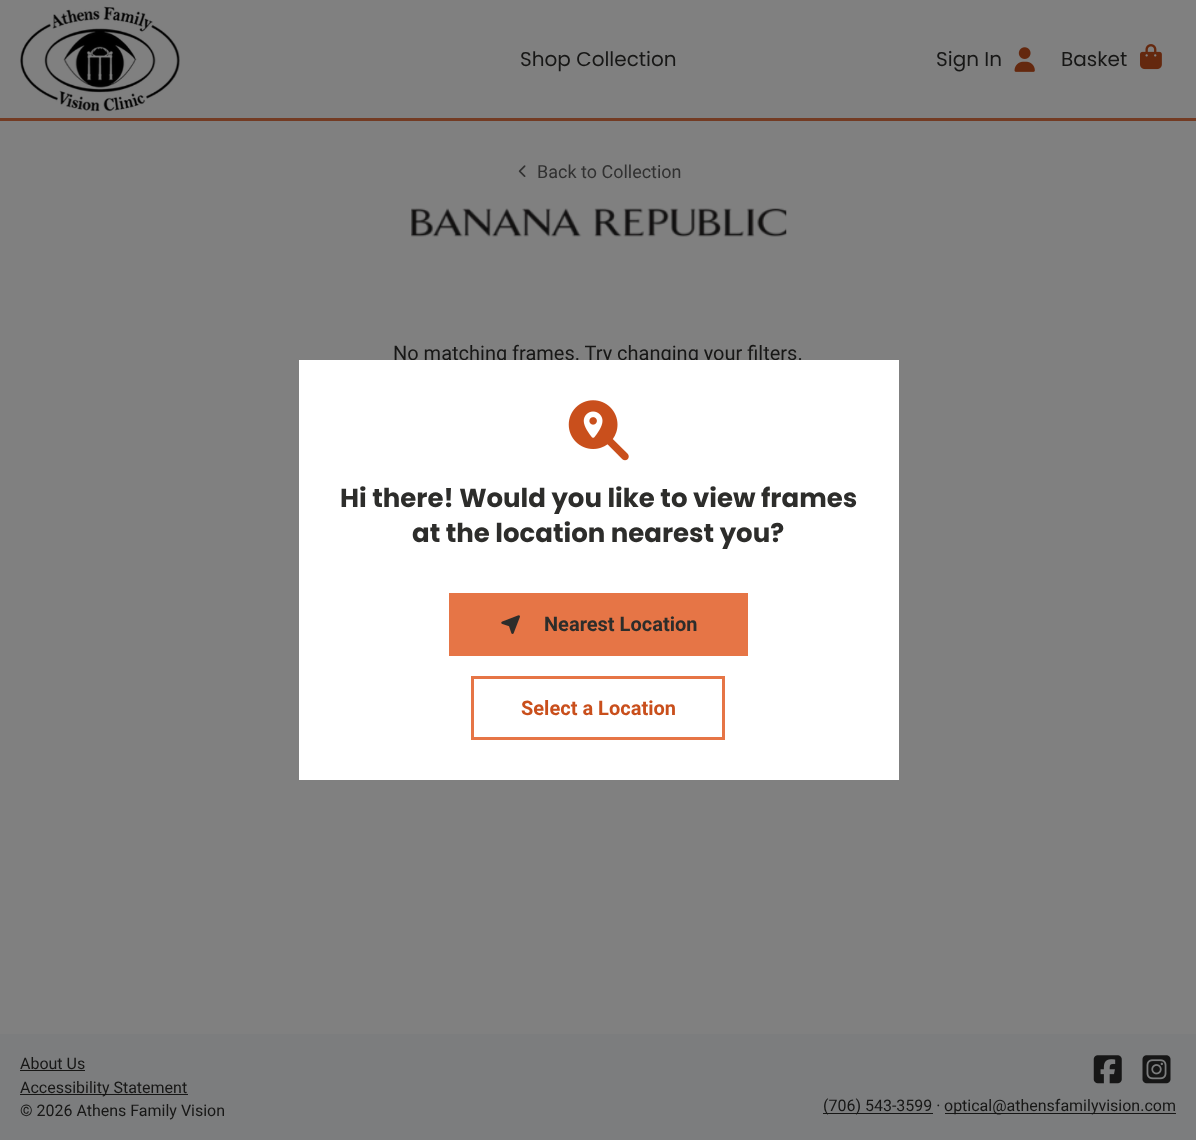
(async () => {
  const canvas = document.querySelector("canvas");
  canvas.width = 1196;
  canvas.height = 1140;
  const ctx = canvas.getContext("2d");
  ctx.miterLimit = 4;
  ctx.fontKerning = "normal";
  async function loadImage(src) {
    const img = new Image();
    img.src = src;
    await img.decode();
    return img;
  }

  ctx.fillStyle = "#808080";
  ctx.fillRect(0, 0, 1196, 1140);
  ctx.fillStyle = "#733b23";
  ctx.fillRect(0, 118, 1196, 3);
  ctx.drawImage(await loadImage("img/1.png"), 20, 6, 160, 106);
  ctx.drawImage(await loadImage("img/2.png"), 1014, 47, 21, 25);
  ctx.drawImage(await loadImage("img/3.png"), 1140, 44, 22, 26);
  ctx.drawImage(await loadImage("img/4.png"), 518, 165, 8, 12);
  ctx.drawImage(await loadImage("img/5.png"), 411, 208, 376, 29);
  for (const [x, y, w, h, color] of [
    [0, 1034, 1196, 106, "#7c7d7e"],
    [20, 1070, 65, 1, "#171716"],
    [20, 1094, 168, 1, "#171716"],
  ]) {
    ctx.fillStyle = color;
    ctx.fillRect(x, y, w, h);
  }
  ctx.drawImage(await loadImage("img/8.png"), 1093, 1055, 29, 29);
  ctx.drawImage(await loadImage("img/9.png"), 1142, 1055, 29, 29);
  ctx.fillRect(823, 1113, 110, 1);
  ctx.fillRect(945, 1113, 231, 1);
  ctx.font = "20px Poppins";
  for (const [text, x, y] of [
    ["Shop Collection", 520, 66],
    ["Sign In", 936, 66],
    ["Basket", 1061, 66],
  ]) {
    ctx.fillText(text, x, y);
  }
  ctx.font = "18px Roboto";
  ctx.fillStyle = "#313131";
  ctx.fillText("Back to Collection", 537, 178);
  ctx.font = "20px Roboto";
  ctx.fillStyle = "#171716";
  ctx.fillText("No matching frames. Try changing your filters.", 393, 360);
  ctx.fillStyle = "#ffffff";
  ctx.fillRect(299, 360, 600, 420);
  ctx.drawImage(await loadImage("img/6.png"), 568, 400, 61, 61);
  ctx.font = "bold 26px Poppins";
  ctx.fillStyle = "#2d2d2b";
  ctx.fillText("Hi there! Would you like to view frames", 340, 507);
  ctx.fillText("at the location nearest you?", 412, 542);
  ctx.fillStyle = "#e67546";
  ctx.fillRect(449, 593, 299, 63);
  ctx.drawImage(await loadImage("img/7.png"), 501, 615, 19, 19);
  ctx.font = "bold 20px Roboto";
  ctx.fillStyle = "#2d2d2b";
  ctx.fillText("Nearest Location", 544, 631);
  ctx.strokeStyle = "#e67546";
  ctx.lineWidth = 3;
  ctx.strokeRect(472.5, 677.5, 251, 61);
  ctx.fillStyle = "#c94f1c";
  ctx.fillText("Select a Location", 521, 715);
  ctx.font = "16px Roboto";
  ctx.fillStyle = "#171716";
  for (const [text, x, y] of [
    ["About Us", 20, 1069],
    ["Accessibility Statement", 20, 1093],
    ["© 2026 Athens Family Vision", 20, 1116],
    ["(706) 543-3599 ·", 823, 1111],
    ["optical@athensfamilyvision.com", 944, 1111],
  ]) {
    ctx.fillText(text, x, y);
  }
})();
